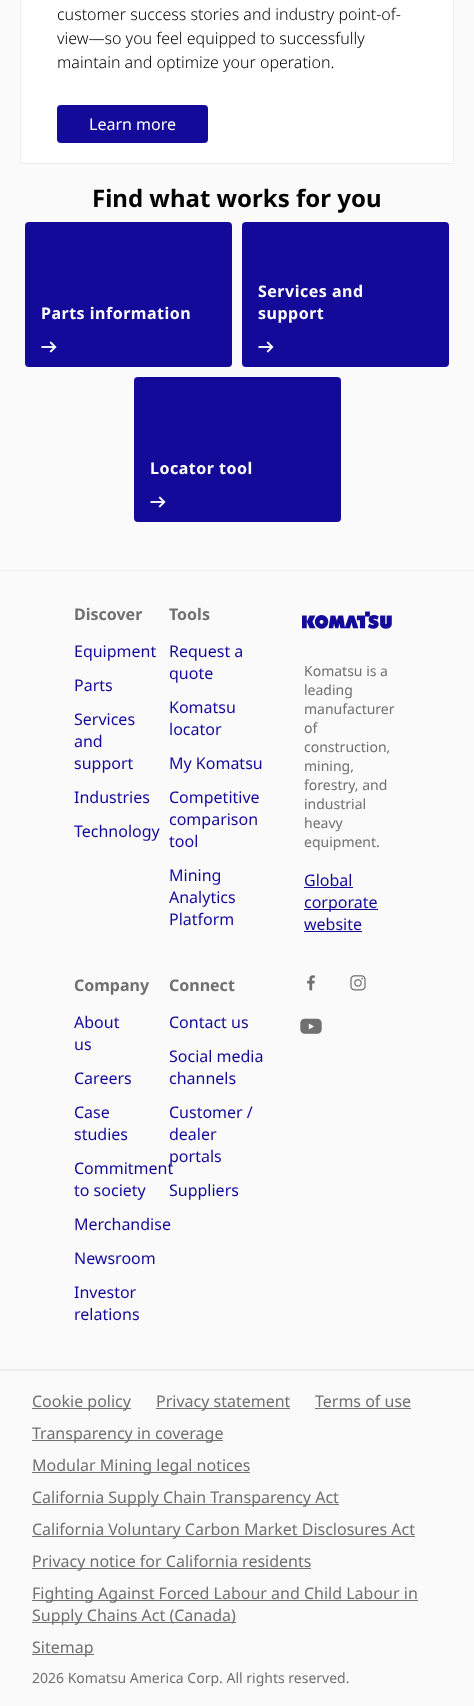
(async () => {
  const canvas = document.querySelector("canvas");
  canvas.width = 474;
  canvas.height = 1706;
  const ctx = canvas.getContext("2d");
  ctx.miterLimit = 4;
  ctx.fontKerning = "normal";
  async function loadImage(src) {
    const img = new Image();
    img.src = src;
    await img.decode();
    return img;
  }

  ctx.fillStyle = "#fafafa";
  ctx.fillRect(0, 0, 474, 1706);
  ctx.fillStyle = "#ffffff";
  ctx.beginPath();
  ctx.rect(20.5, -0.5, 433, 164);
  ctx.fill();
  ctx.strokeStyle = "#ededed";
  ctx.stroke();
  ctx.fillStyle = "#140a9a";
  ctx.beginPath();
  ctx.roundRect(57, 105, 151, 38, 4);
  ctx.fill();
  ctx.beginPath();
  ctx.roundRect(25, 222, 207, 145, 4);
  ctx.fill();
  ctx.drawImage(await loadImage("img/1.png"), 41, 341, 16, 12);
  ctx.beginPath();
  ctx.roundRect(242, 222, 207, 145, 4);
  ctx.fill();
  ctx.drawImage(await loadImage("img/1.png"), 258, 341, 16, 12);
  ctx.beginPath();
  ctx.roundRect(134, 377, 207, 145, 4);
  ctx.fill();
  ctx.drawImage(await loadImage("img/1.png"), 150, 496, 16, 12);
  ctx.fillStyle = "#ededed";
  ctx.fillRect(0, 570, 474, 1);
  ctx.drawImage(await loadImage("img/2.png"), 302, 611, 90, 18);
  for (const [x, y, w, h, color] of [
    [304, 887, 49, 1, "#140a9a"],
    [304, 909, 74, 1, "#140a9a"],
    [304, 931, 58, 1, "#140a9a"],
  ]) {
    ctx.fillStyle = color;
    ctx.fillRect(x, y, w, h);
  }
  ctx.drawImage(await loadImage("img/3.png"), 307, 975, 8, 16);
  ctx.drawImage(await loadImage("img/4.png"), 350, 975, 16, 16);
  ctx.drawImage(await loadImage("img/5.png"), 300, 1018, 22, 16);
  for (const [x, y, w, h, color] of [
    [0, 1369, 474, 2, "#ededed"],
    [32, 1408, 99, 1, "#707070"],
    [156, 1408, 134, 1, "#707070"],
    [315, 1408, 96, 1, "#707070"],
    [32, 1440, 191, 1, "#707070"],
    [32, 1472, 218, 1, "#707070"],
    [32, 1504, 307, 1, "#707070"],
    [32, 1536, 383, 1, "#707070"],
    [32, 1568, 279, 1, "#707070"],
    [32, 1600, 386, 1, "#707070"],
    [32, 1622, 204, 1, "#707070"],
    [32, 1654, 62, 1, "#707070"],
  ]) {
    ctx.fillStyle = color;
    ctx.fillRect(x, y, w, h);
  }
  ctx.font = "300 16px Noto Sans";
  ctx.fillStyle = "#000000";
  for (const [text, x, y] of [
    ["customer success stories and industry point-of-", 57, 20],
    ["view—so you feel equipped to successfully", 57, 44],
    ["maintain and optimize your operation.", 57, 68],
  ]) {
    ctx.fillText(text, x, y);
  }
  ctx.font = "16px Noto Sans";
  ctx.fillStyle = "#ffffff";
  ctx.fillText("Learn more", 89, 130);
  ctx.font = "bold 24px Noto Sans";
  ctx.fillStyle = "#000000";
  ctx.fillText("Find what works for you", 92, 207);
  ctx.letterSpacing = "0.5px";
  ctx.font = "bold 16px Noto Sans";
  ctx.fillStyle = "#ffffff";
  for (const [text, x, y] of [
    ["Parts information", 41, 319],
    ["Services and", 258, 297],
    ["support", 258, 319],
    ["Locator tool", 150, 474],
  ]) {
    ctx.fillText(text, x, y);
  }
  ctx.letterSpacing = "0px";
  ctx.fillStyle = "#707070";
  ctx.fillText("Discover", 74, 620);
  ctx.font = "16px Noto Sans";
  ctx.fillStyle = "#140a9a";
  for (const [text, x, y] of [
    ["Equipment", 74, 657],
    ["Parts", 74, 691],
    ["Services", 74, 725],
    ["and", 74, 747],
    ["support", 74, 769],
    ["Industries", 74, 803],
    ["Technology", 74, 837],
  ]) {
    ctx.fillText(text, x, y);
  }
  ctx.font = "bold 16px Noto Sans";
  ctx.fillStyle = "#707070";
  ctx.fillText("Tools", 169, 620);
  ctx.font = "16px Noto Sans";
  ctx.fillStyle = "#140a9a";
  for (const [text, x, y] of [
    ["Request a", 169, 657],
    ["quote", 169, 679],
    ["Komatsu", 169, 713],
    ["locator", 169, 735],
    ["My Komatsu", 169, 769],
    ["Competitive", 169, 803],
    ["comparison", 169, 825],
    ["tool", 169, 847],
    ["Mining", 169, 881],
    ["Analytics", 169, 903],
    ["Platform", 169, 925],
  ]) {
    ctx.fillText(text, x, y);
  }
  ctx.font = "bold 16px Noto Sans";
  ctx.fillStyle = "#707070";
  ctx.fillText("Company", 74, 991);
  ctx.font = "16px Noto Sans";
  ctx.fillStyle = "#140a9a";
  for (const [text, x, y] of [
    ["About", 74, 1028],
    ["us", 74, 1050],
    ["Careers", 74, 1084],
    ["Case", 74, 1118],
    ["studies", 74, 1140],
    ["Commitment", 74, 1174],
    ["to society", 74, 1196],
    ["Merchandise", 74, 1230],
    ["Newsroom", 74, 1264],
    ["Investor", 74, 1298],
    ["relations", 74, 1320],
  ]) {
    ctx.fillText(text, x, y);
  }
  ctx.font = "bold 16px Noto Sans";
  ctx.fillStyle = "#707070";
  ctx.fillText("Connect", 169, 991);
  ctx.font = "16px Noto Sans";
  ctx.fillStyle = "#140a9a";
  for (const [text, x, y] of [
    ["Contact us", 169, 1028],
    ["Social media", 169, 1062],
    ["channels", 169, 1084],
    ["Customer /", 169, 1118],
    ["dealer", 169, 1140],
    ["portals", 169, 1162],
    ["Suppliers", 169, 1196],
  ]) {
    ctx.fillText(text, x, y);
  }
  ctx.font = "14px Noto Sans";
  ctx.fillStyle = "#707070";
  for (const [text, x, y] of [
    ["Komatsu is a", 304, 676],
    ["leading", 304, 695],
    ["manufacturer", 304, 714],
    ["of", 304, 733],
    ["construction,", 304, 752],
    ["mining,", 304, 771],
    ["forestry, and", 304, 790],
    ["industrial", 304, 809],
    ["heavy", 304, 828],
    ["equipment.", 304, 847],
  ]) {
    ctx.fillText(text, x, y);
  }
  ctx.font = "16px Noto Sans";
  ctx.fillStyle = "#140a9a";
  for (const [text, x, y] of [
    ["Global", 304, 886],
    ["corporate", 304, 908],
    ["website", 304, 930],
  ]) {
    ctx.fillText(text, x, y);
  }
  ctx.fillStyle = "#707070";
  for (const [text, x, y] of [
    ["Cookie policy", 32, 1407],
    ["Privacy statement", 156, 1407],
    ["Terms of use", 315, 1407],
    ["Transparency in coverage", 32, 1439],
    ["Modular Mining legal notices", 32, 1471],
    ["California Supply Chain Transparency Act", 32, 1503],
    ["California Voluntary Carbon Market Disclosures Act", 32, 1535],
    ["Privacy notice for California residents", 32, 1567],
    ["Fighting Against Forced Labour and Child Labour in", 32, 1599],
    ["Supply Chains Act (Canada)", 32, 1621],
    ["Sitemap", 32, 1653],
  ]) {
    ctx.fillText(text, x, y);
  }
  ctx.font = "14px Noto Sans";
  ctx.fillText("2026 Komatsu America Corp. All rights reserved.", 32, 1683);
})();
